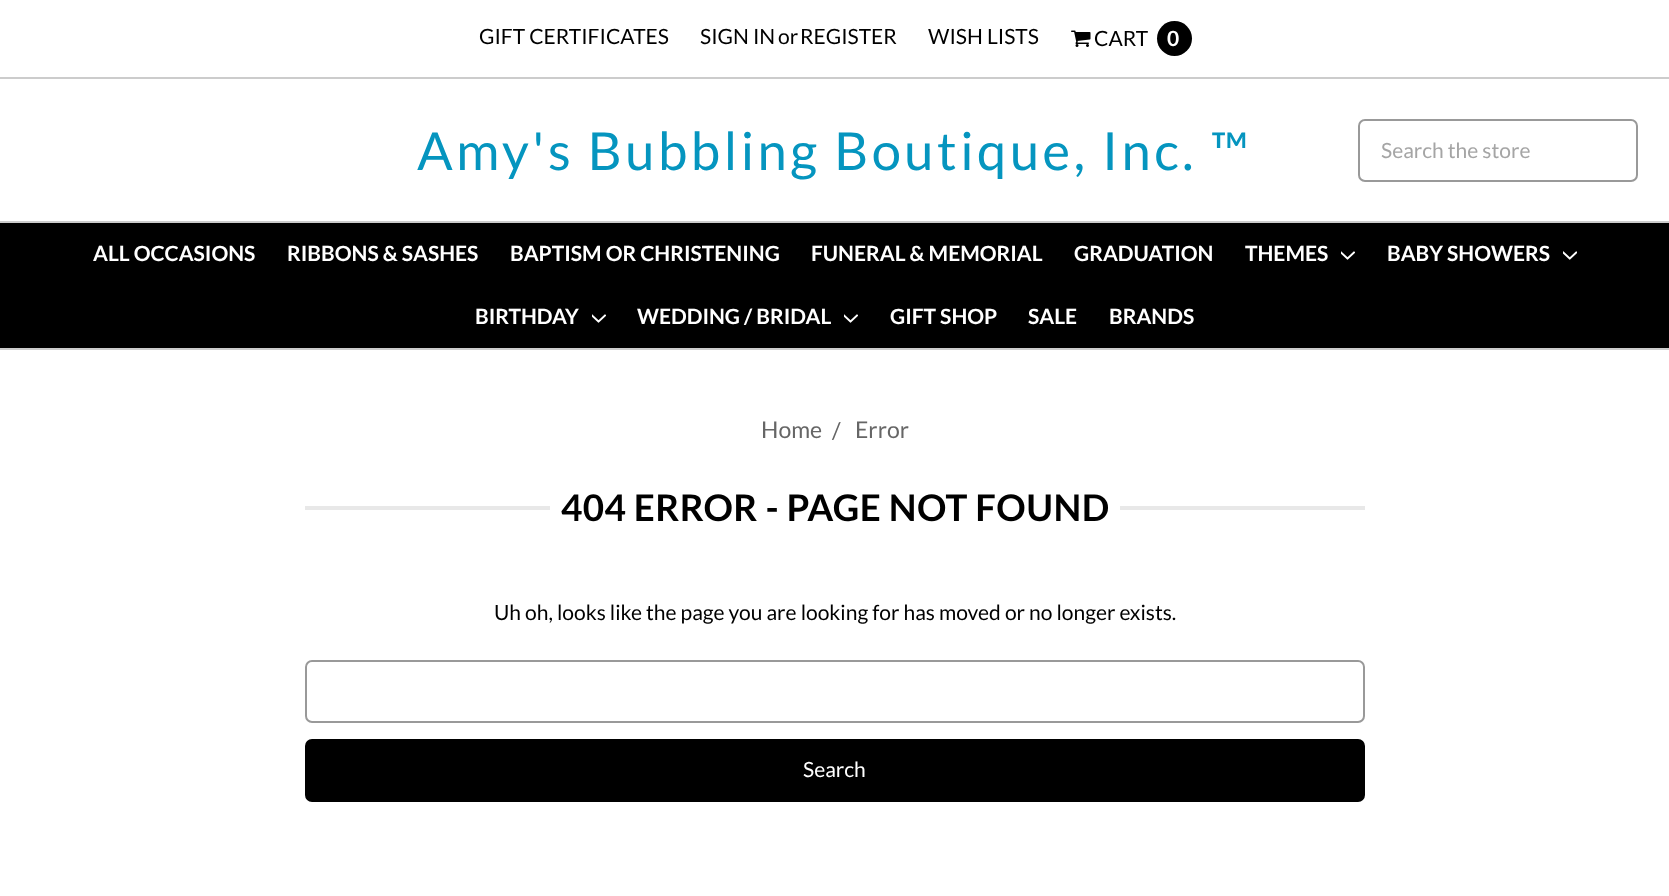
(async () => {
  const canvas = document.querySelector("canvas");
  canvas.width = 1669;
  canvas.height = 896;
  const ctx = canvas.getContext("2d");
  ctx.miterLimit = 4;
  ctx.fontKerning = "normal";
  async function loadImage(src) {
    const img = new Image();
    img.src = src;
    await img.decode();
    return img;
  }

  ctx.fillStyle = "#ffffff";
  ctx.fillRect(0, 0, 1669, 896);
  ctx.fillStyle = "#cccccc";
  ctx.fillRect(0, 77, 1669, 2);
  ctx.drawImage(await loadImage("img/1.png"), 1071, 30, 20, 17);
  ctx.fillStyle = "#000000";
  ctx.beginPath();
  ctx.arc(1174.5, 38.5, 17.5, 0, Math.PI * 2);
  ctx.fill();
  ctx.beginPath();
  ctx.roundRect(1359, 120, 278, 61, 6);
  ctx.strokeStyle = "#999999";
  ctx.lineWidth = 2;
  ctx.stroke();
  for (const [x, y, w, h, color] of [
    [0, 223, 1669, 125, "#000000"],
    [0, 221, 1669, 2, "#cccccc"],
    [0, 348, 1669, 2, "#cccccc"],
  ]) {
    ctx.fillStyle = color;
    ctx.fillRect(x, y, w, h);
  }
  ctx.drawImage(await loadImage("img/2.png"), 1341, 251, 14, 9);
  ctx.drawImage(await loadImage("img/3.png"), 1563, 251, 14, 9);
  ctx.drawImage(await loadImage("img/2.png"), 592, 314, 14, 9);
  ctx.drawImage(await loadImage("img/2.png"), 844, 314, 14, 9);
  ctx.fillStyle = "#e8e8e8";
  ctx.fillRect(305, 506, 245, 4);
  ctx.fillRect(1120, 506, 245, 4);
  ctx.beginPath();
  ctx.roundRect(306, 661, 1058, 61, 6);
  ctx.stroke();
  ctx.fillStyle = "#000000";
  ctx.beginPath();
  ctx.roundRect(306, 740, 1058, 61, 6);
  ctx.fill();
  ctx.strokeStyle = "#000000";
  ctx.stroke();
  ctx.font = "21px Lato";
  for (const [text, x, y] of [
    ["GIFT CERTIFICATES", 479, 44],
    ["SIGN IN", 700, 44],
    ["or", 778, 44],
    ["REGISTER", 800, 44],
    ["WISH LISTS", 928, 44],
    ["CART", 1094, 46],
  ]) {
    ctx.fillText(text, x, y);
  }
  ctx.font = "bold 21px Lato";
  ctx.fillStyle = "#ffffff";
  ctx.fillText("0", 1167, 46);
  ctx.letterSpacing = "3.5px";
  ctx.font = "52.5px Lato";
  ctx.fillStyle = "#0595bf";
  ctx.fillText("Amy's Bubbling Boutique, Inc. ™", 417, 170);
  ctx.letterSpacing = "0px";
  ctx.font = "21px Lato";
  ctx.fillStyle = "#a5a5a5";
  ctx.fillText("Search the store", 1381, 158);
  ctx.font = "bold 21px Lato";
  ctx.fillStyle = "#ffffff";
  for (const [text, x, y] of [
    ["ALL OCCASIONS", 93, 261],
    ["RIBBONS & SASHES", 287, 261],
    ["BAPTISM OR CHRISTENING", 510, 261],
    ["FUNERAL & MEMORIAL", 811, 261],
    ["GRADUATION", 1074, 261],
    ["THEMES", 1245, 261],
    ["BABY SHOWERS", 1387, 261],
    ["BIRTHDAY", 475, 324],
    ["WEDDING / BRIDAL", 637, 324],
    ["GIFT SHOP", 890, 324],
    ["SALE", 1028, 324],
    ["BRANDS", 1109, 324],
  ]) {
    ctx.fillText(text, x, y);
  }
  ctx.font = "23px Lato";
  ctx.fillStyle = "#666666";
  for (const [text, x, y] of [
    ["Home", 761, 438],
    ["/", 832, 439],
    ["Error", 855, 438],
  ]) {
    ctx.fillText(text, x, y);
  }
  ctx.letterSpacing = "0.45px";
  ctx.font = "bold 36.75px Lato";
  ctx.fillStyle = "#000000";
  ctx.fillText("404 ERROR - PAGE NOT FOUND", 561, 521);
  ctx.letterSpacing = "0px";
  ctx.font = "21px Lato";
  ctx.fillText("Uh oh, looks like the page you are looking for has moved or no longer exists.", 494, 620);
  ctx.fillStyle = "#ffffff";
  ctx.fillText("Search", 803, 777);
})();
